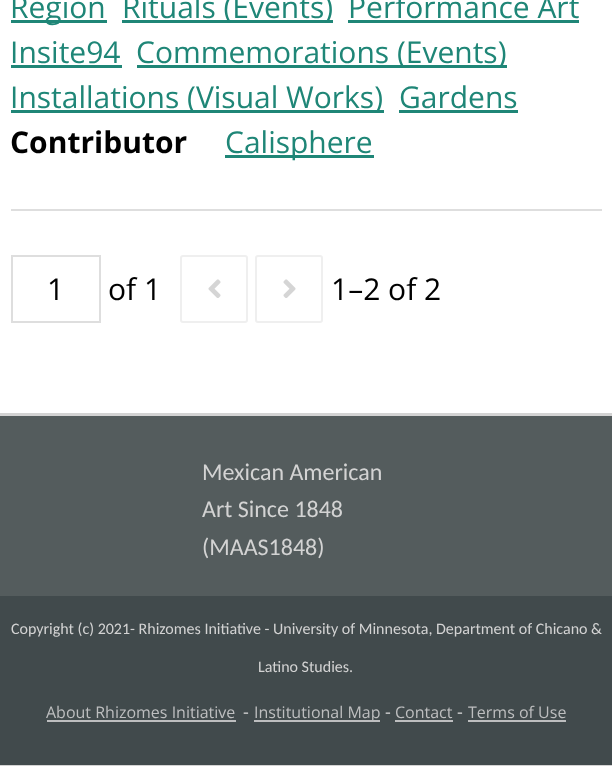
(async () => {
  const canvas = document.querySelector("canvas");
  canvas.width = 612;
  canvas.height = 766;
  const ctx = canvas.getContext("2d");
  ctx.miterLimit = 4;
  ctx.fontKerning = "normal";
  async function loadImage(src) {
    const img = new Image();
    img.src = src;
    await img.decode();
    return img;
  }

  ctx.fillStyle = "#ffffff";
  ctx.fillRect(0, 0, 612, 766);
  for (const [x, y, w, h, color] of [
    [11, 209, 591, 2, "#dedede"],
    [11, 20, 96, 3, "#1f8677"],
    [122, 20, 211, 3, "#1f8677"],
    [348, 20, 231, 3, "#1f8677"],
    [11, 65, 111, 3, "#1f8677"],
    [137, 65, 370, 3, "#1f8677"],
    [11, 110, 373, 3, "#1f8677"],
    [399, 110, 119, 3, "#1f8677"],
    [225, 155, 149, 3, "#1f8677"],
  ]) {
    ctx.fillStyle = color;
    ctx.fillRect(x, y, w, h);
  }
  ctx.strokeStyle = "#dedede";
  ctx.lineWidth = 2;
  ctx.strokeRect(12, 256, 88, 66);
  ctx.beginPath();
  ctx.roundRect(181, 256, 66, 66, 2);
  ctx.strokeStyle = "#efefef";
  ctx.stroke();
  ctx.drawImage(await loadImage("img/1.png"), 208, 279, 13, 19);
  ctx.beginPath();
  ctx.roundRect(256, 256, 66, 66, 2);
  ctx.stroke();
  ctx.drawImage(await loadImage("img/2.png"), 283, 279, 13, 19);
  for (const [x, y, w, h, color] of [
    [0, 416, 612, 180, "#545c5d"],
    [0, 413, 612, 3, "#d3d3d3"],
    [0, 765, 612, 1, "#d3d3d3"],
    [0, 596, 612, 169, "#414a4c"],
    [47, 720, 189, 2, "#bdbebf"],
    [254, 720, 126, 2, "#bdbebf"],
    [395, 720, 58, 2, "#bdbebf"],
    [468, 720, 98, 2, "#bdbebf"],
  ]) {
    ctx.fillStyle = color;
    ctx.fillRect(x, y, w, h);
  }
  ctx.font = "30px Open Sans";
  ctx.fillStyle = "#1f8677";
  for (const [text, x, y] of [
    ["Region", 10, 18],
    ["Rituals (Events)", 122, 18],
    ["Performance Art", 348, 18],
    ["Insite94", 10, 63],
    ["Commemorations (Events)", 136, 63],
    ["Installations (Visual Works)", 10, 108],
    ["Gardens", 399, 108],
  ]) {
    ctx.fillText(text, x, y);
  }
  ctx.font = "bold 30px Open Sans";
  ctx.fillStyle = "#000000";
  ctx.fillText("Contributor", 10, 153);
  ctx.font = "30px Open Sans";
  ctx.fillStyle = "#1f8677";
  ctx.fillText("Calisphere", 225, 153);
  ctx.fillStyle = "#000000";
  for (const [text, x, y] of [
    ["1", 47, 300],
    ["of 1", 108, 300],
    ["1–2 of 2", 331, 300],
  ]) {
    ctx.fillText(text, x, y);
  }
  ctx.font = "24px Carlito";
  ctx.fillStyle = "#d3d3d3";
  for (const [text, x, y] of [
    ["Mexican American", 202, 480],
    ["Art Since 1848", 202, 517],
    ["(MAAS1848)", 202, 555],
  ]) {
    ctx.fillText(text, x, y);
  }
  ctx.font = "16px Carlito";
  ctx.fillText("Copyright (c) 2021- Rhizomes Initiative - University of Minnesota, Department of Chicano &", 11, 634);
  ctx.fillText("Latino Studies.", 258, 672);
  ctx.font = "16px Open Sans";
  ctx.fillStyle = "#bdbebf";
  ctx.fillText("About Rhizomes Initiative", 46, 718);
  ctx.font = "18px Open Sans";
  ctx.fillStyle = "#d3d3d3";
  ctx.fillText("-", 243, 718);
  ctx.font = "16px Open Sans";
  ctx.fillStyle = "#bdbebf";
  ctx.fillText("Institutional Map", 254, 718);
  ctx.font = "18px Open Sans";
  ctx.fillStyle = "#d3d3d3";
  ctx.fillText("-", 385, 718);
  ctx.font = "16px Open Sans";
  ctx.fillStyle = "#bdbebf";
  ctx.fillText("Contact", 395, 718);
  ctx.font = "18px Open Sans";
  ctx.fillStyle = "#d3d3d3";
  ctx.fillText("-", 457, 718);
  ctx.font = "16px Open Sans";
  ctx.fillStyle = "#bdbebf";
  ctx.fillText("Terms of Use", 468, 718);
})();
